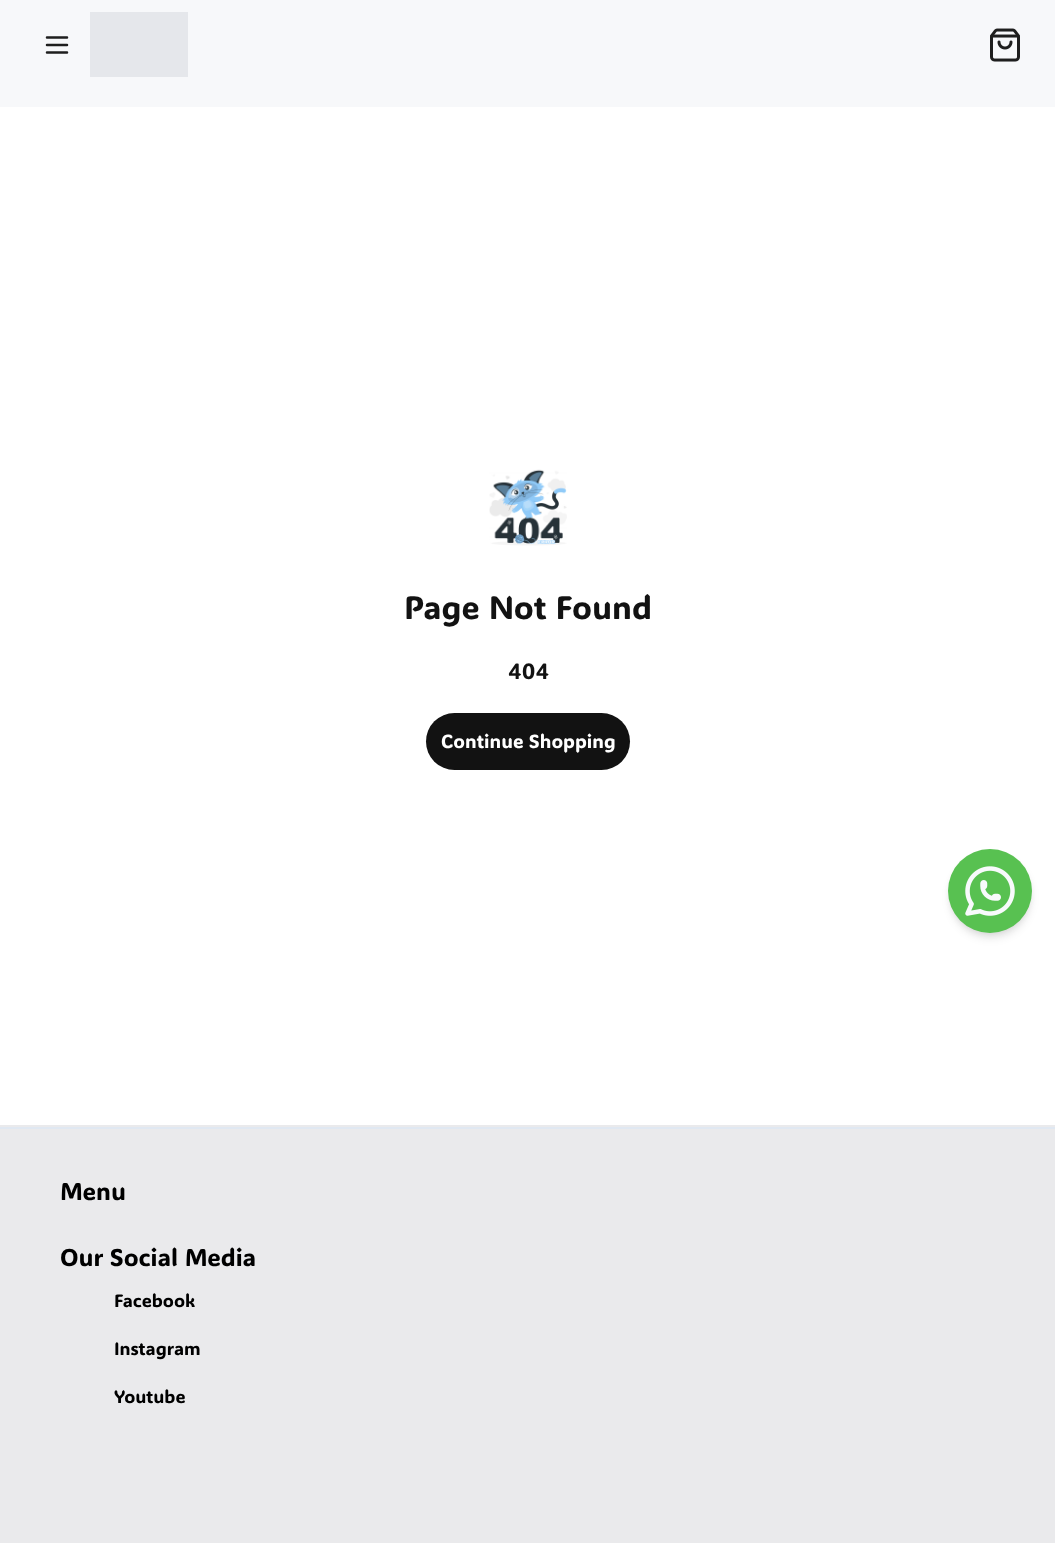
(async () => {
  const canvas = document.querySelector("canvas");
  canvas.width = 1055;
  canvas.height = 1543;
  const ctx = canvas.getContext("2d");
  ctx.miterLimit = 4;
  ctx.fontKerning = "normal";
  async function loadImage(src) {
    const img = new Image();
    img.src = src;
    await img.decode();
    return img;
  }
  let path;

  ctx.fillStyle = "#ffffff";
  ctx.fillRect(0, 0, 1055, 1543);
  ctx.fillStyle = "#f7f8fa";
  ctx.fillRect(0, 0, 1055, 107);
  path = new Path2D("M47 45H67M47 52.5H67M47 37.5H67");
  ctx.strokeStyle = "#1e1e1e";
  ctx.lineWidth = 2.5;
  ctx.lineCap = "round";
  ctx.lineJoin = "round";
  ctx.stroke(path);
  ctx.fillStyle = "#e5e7eb";
  ctx.fillRect(90, 12, 98, 65);
  ctx.drawImage(await loadImage("img/1.png"), 990, 28, 30, 34);
  ctx.drawImage(await loadImage("img/2.png"), 489, 469, 78, 77);
  ctx.fillStyle = "#121212";
  ctx.beginPath();
  ctx.roundRect(426, 713, 204, 57, 28.5);
  ctx.fill();
  ctx.fillStyle = "#eaeaec";
  ctx.fillRect(0, 1125, 1055, 418);
  ctx.fillStyle = "#e0e8f2";
  ctx.fillRect(0, 1127, 1055, 2);
  ctx.fillStyle = "rgba(0, 0, 0, 0.1)";
  ctx.filter = "blur(3px)";
  ctx.beginPath();
  ctx.roundRect(951, 855, 78, 78, 39);
  ctx.fill();
  ctx.filter = "none";
  ctx.filter = "blur(4.5px)";
  ctx.beginPath();
  ctx.roundRect(950, 857, 81, 81, 40.5);
  ctx.fill();
  ctx.filter = "none";
  ctx.fillStyle = "#58c151";
  ctx.beginPath();
  ctx.arc(990, 891, 42, 0, Math.PI * 2);
  ctx.fill();
  ctx.drawImage(await loadImage("img/3.png"), 965, 866, 50, 50);
  ctx.font = "32.5px ADLaM Display";
  ctx.fillStyle = "#121212";
  ctx.fillText("Page Not Found", 404, 619);
  ctx.font = "22px ADLaM Display";
  ctx.fillText("404", 508, 679);
  ctx.font = "19px ADLaM Display";
  ctx.fillStyle = "#ffffff";
  ctx.fillText("Continue Shopping", 441, 748);
  ctx.font = "24.25px ADLaM Display";
  ctx.fillStyle = "#000000";
  ctx.fillText("Menu", 60, 1200);
  ctx.fillText("Our Social Media", 60, 1266);
  ctx.font = "18px ADLaM Display";
  for (const [text, x, y] of [
    ["Facebook", 114, 1307],
    ["Instagram", 114, 1355],
    ["Youtube", 114, 1403],
  ]) {
    ctx.fillText(text, x, y);
  }
})();
